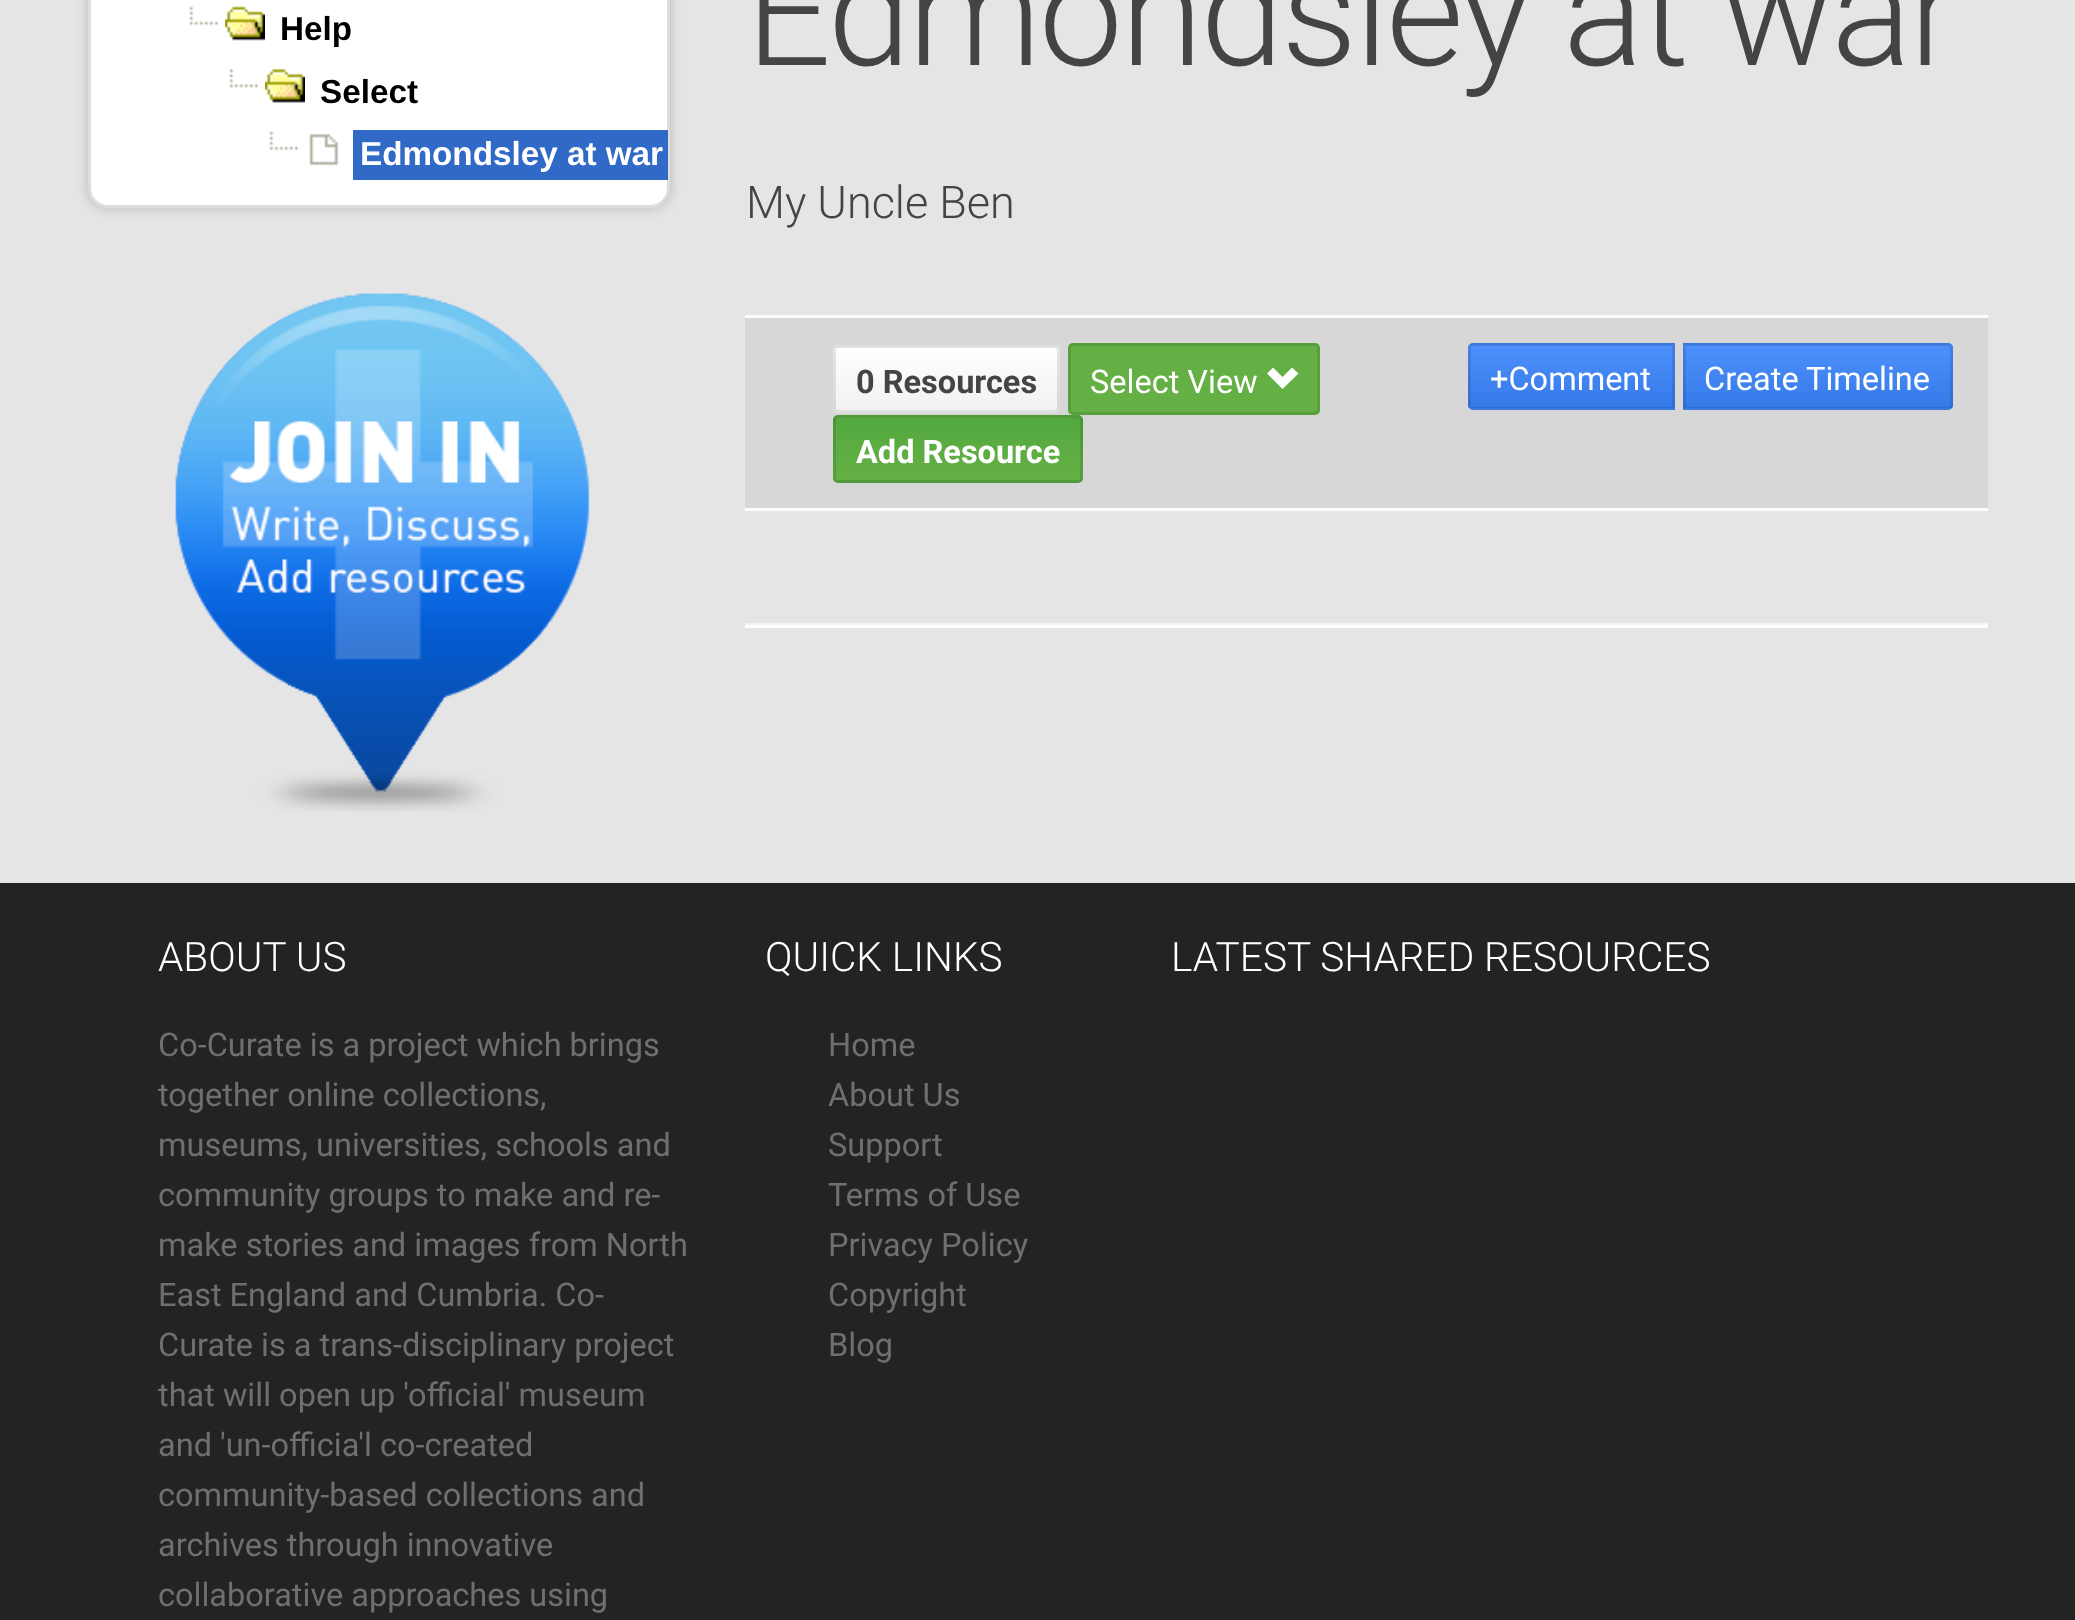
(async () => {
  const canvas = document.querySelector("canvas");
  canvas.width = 2075;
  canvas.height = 1620;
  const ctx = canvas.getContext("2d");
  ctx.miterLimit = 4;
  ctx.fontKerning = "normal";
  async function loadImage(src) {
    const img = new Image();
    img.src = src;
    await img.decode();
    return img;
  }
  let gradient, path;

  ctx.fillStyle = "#e5e5e5";
  ctx.fillRect(0, 0, 2075, 1620);
  ctx.fillStyle = "rgba(0, 0, 0, 0.2)";
  ctx.filter = "blur(6px)";
  ctx.beginPath();
  ctx.roundRect(88, -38, 582, 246, 20);
  ctx.fill();
  ctx.filter = "none";
  ctx.fillStyle = "#ffffff";
  ctx.beginPath();
  ctx.roundRect(89.5, -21.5, 579, 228, 18.5);
  ctx.fill();
  ctx.strokeStyle = "#dddddd";
  ctx.lineWidth = 3;
  ctx.stroke();
  ctx.drawImage(await loadImage("img/1.png"), 189, 6, 29, 20);
  ctx.drawImage(await loadImage("img/2.png"), 225, 6, 40, 35);
  ctx.drawImage(await loadImage("img/3.png"), 229, 68, 29, 20);
  ctx.drawImage(await loadImage("img/4.png"), 265, 68, 40, 35);
  ctx.drawImage(await loadImage("img/1.png"), 269, 131, 29, 20);
  ctx.drawImage(await loadImage("img/5.png"), 309, 133, 30, 33);
  ctx.fillStyle = "#3169c6";
  ctx.fillRect(353, 130, 315, 50);
  ctx.drawImage(await loadImage("img/6.png"), 175, 293, 415, 519);
  for (const [x, y, w, h, color] of [
    [745, 318, 1243, 190, "#d7d7d7"],
    [745, 315, 1243, 3, "#ffffff"],
    [745, 508, 1243, 3, "#ffffff"],
  ]) {
    ctx.fillStyle = color;
    ctx.fillRect(x, y, w, h);
  }
  ctx.fillStyle = "#f9f9f9";
  ctx.beginPath();
  ctx.roundRect(833, 345, 227, 68, 5);
  ctx.fill();
  ctx.save();
  ctx.beginPath();
  ctx.roundRect(833, 345, 227, 68, 5);
  ctx.clip();
  gradient = ctx.createLinearGradient(946, 348, 946, 410);
  gradient.addColorStop(0, "#ffffff");
  gradient.addColorStop(1, "#f1f1f1");
  ctx.fillStyle = gradient;
  ctx.fillRect(833, 348, 227, 62);
  ctx.restore();
  ctx.beginPath();
  ctx.roundRect(834.5, 346.5, 224, 65, 3.5);
  ctx.strokeStyle = "rgba(0, 0, 0, 0.1)";
  ctx.stroke();
  ctx.fillStyle = "#65b045";
  ctx.beginPath();
  ctx.roundRect(1068, 343, 252, 72, 5);
  ctx.fill();
  ctx.beginPath();
  ctx.roundRect(1069.5, 344.5, 249, 69, 3.5);
  ctx.stroke();
  ctx.fillStyle = "#ffffff";
  path = new Path2D("M1267 373.5L1282.5 389L1298.5 373.5L1292 367.5L1282.5 377L1273 367.5Z");
  ctx.fill(path);
  ctx.fillStyle = "#5aac41";
  ctx.beginPath();
  ctx.roundRect(833, 415, 250, 68, 5);
  ctx.fill();
  ctx.save();
  ctx.beginPath();
  ctx.roundRect(833, 415, 250, 68, 5);
  ctx.clip();
  gradient = ctx.createLinearGradient(958, 418, 958, 480);
  gradient.addColorStop(0, "#53a93f");
  gradient.addColorStop(1, "#65b045");
  ctx.fillStyle = gradient;
  ctx.fillRect(833, 418, 250, 62);
  ctx.restore();
  ctx.beginPath();
  ctx.roundRect(834.5, 416.5, 247, 65, 3.5);
  ctx.stroke();
  ctx.fillStyle = "#4387f5";
  ctx.beginPath();
  ctx.roundRect(1468, 343, 207, 67, [5, 0, 0, 5]);
  ctx.fill();
  ctx.save();
  ctx.beginPath();
  ctx.roundRect(1468, 343, 207, 67, [5, 0, 0, 5]);
  ctx.clip();
  gradient = ctx.createLinearGradient(1571, 345, 1571, 408);
  gradient.addColorStop(0, "#4d90fe");
  gradient.addColorStop(1, "#357ae8");
  ctx.fillStyle = gradient;
  ctx.fillRect(1468, 345, 207, 63);
  ctx.restore();
  ctx.beginPath();
  ctx.roundRect(1469.5, 344.5, 204, 64, [3.5, 0, 0, 3.5]);
  ctx.stroke();
  ctx.beginPath();
  ctx.roundRect(1683, 343, 270, 67, [0, 5, 5, 0]);
  ctx.fill();
  ctx.save();
  ctx.beginPath();
  ctx.roundRect(1683, 343, 270, 67, [0, 5, 5, 0]);
  ctx.clip();
  gradient = ctx.createLinearGradient(1818, 345, 1818, 408);
  gradient.addColorStop(0, "#4d90fe");
  gradient.addColorStop(1, "#357ae8");
  ctx.fillStyle = gradient;
  ctx.fillRect(1683, 345, 270, 63);
  ctx.restore();
  ctx.beginPath();
  ctx.roundRect(1684.5, 344.5, 267, 64, [0, 3.5, 3.5, 0]);
  ctx.stroke();
  for (const [x, y, w, h, color] of [
    [745, 623, 1243, 2, "#f5f5f5"],
    [745, 625, 1243, 3, "#ffffff"],
    [0, 883, 2075, 737, "#232323"],
  ]) {
    ctx.fillStyle = color;
    ctx.fillRect(x, y, w, h);
  }
  ctx.font = "bold 33.25px Liberation Sans";
  ctx.fillStyle = "#000000";
  ctx.fillText("Help", 280, 40);
  ctx.fillText("Select", 320, 103);
  ctx.fillStyle = "#ffffff";
  ctx.fillText("Edmondsley at war", 360, 165);
  ctx.letterSpacing = "-2.5px";
  ctx.font = "300 150px Roboto";
  ctx.fillStyle = "#444444";
  ctx.fillText("Edmondsley at war", 746, 65);
  ctx.letterSpacing = "0px";
  ctx.font = "300 45px Roboto";
  ctx.fillText("My Uncle Ben", 746, 218);
  ctx.font = "bold 32.5px Roboto";
  ctx.fillText("0 Resources", 856, 393);
  ctx.font = "32.5px Roboto";
  ctx.fillStyle = "#ffffff";
  ctx.fillText("Select View", 1090, 393);
  ctx.font = "bold 32.5px Roboto";
  ctx.fillText("Add Resource", 856, 463);
  ctx.font = "32.5px Roboto";
  for (const [text, x, y] of [
    ["+Comment", 1490, 390],
    ["Create", 1704, 390],
    ["Timeline", 1806, 390],
  ]) {
    ctx.fillText(text, x, y);
  }
  ctx.font = "300 40.6px Roboto";
  ctx.fillText("ABOUT US", 158, 971);
  ctx.font = "32.5px Roboto";
  ctx.fillStyle = "#6f6f6f";
  for (const [text, x, y] of [
    ["Co-Curate is a project which brings", 158, 1056],
    ["together online collections,", 158, 1106],
    ["museums, universities, schools and", 158, 1156],
    ["community groups to make and re-", 158, 1206],
    ["make stories and images from North", 158, 1256],
    ["East England and Cumbria. Co-", 158, 1306],
    ["Curate is a trans-disciplinary project", 158, 1356],
    ["that will open up 'official' museum", 158, 1406],
    ["and 'un-officia'l co-created", 158, 1456],
    ["community-based collections and", 158, 1506],
    ["archives through innovative", 158, 1556],
    ["collaborative approaches using", 158, 1606],
  ]) {
    ctx.fillText(text, x, y);
  }
  ctx.font = "300 40.6px Roboto";
  ctx.fillStyle = "#ffffff";
  ctx.fillText("QUICK LINKS", 765, 971);
  ctx.font = "32.5px Roboto";
  ctx.fillStyle = "#6f6f6f";
  for (const [text, x, y] of [
    ["Home", 828, 1056],
    ["About Us", 828, 1106],
    ["Support", 828, 1156],
    ["Terms of Use", 828, 1206],
    ["Privacy Policy", 828, 1256],
    ["Copyright", 828, 1306],
    ["Blog", 828, 1356],
  ]) {
    ctx.fillText(text, x, y);
  }
  ctx.font = "300 40.6px Roboto";
  ctx.fillStyle = "#ffffff";
  ctx.fillText("LATEST SHARED RESOURCES", 1171, 971);
})();
